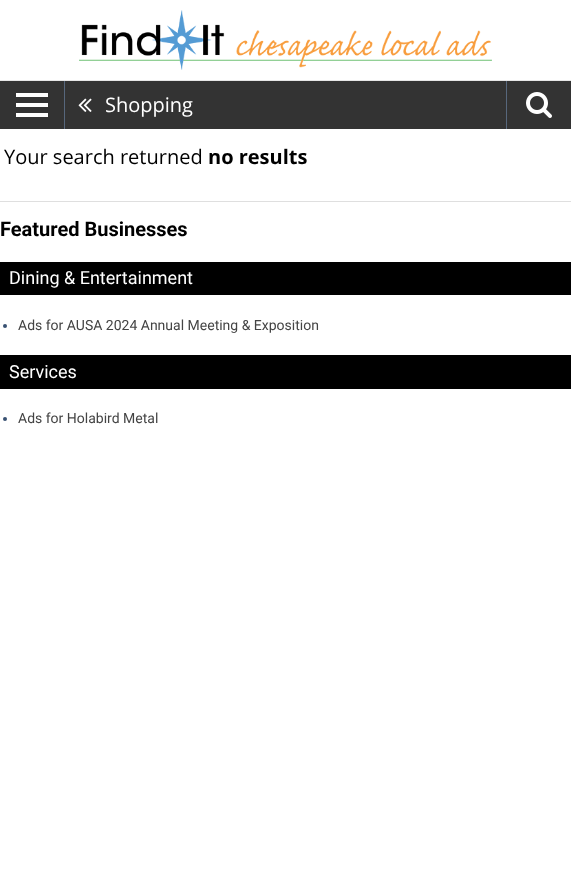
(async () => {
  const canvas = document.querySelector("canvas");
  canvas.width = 571;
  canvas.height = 877;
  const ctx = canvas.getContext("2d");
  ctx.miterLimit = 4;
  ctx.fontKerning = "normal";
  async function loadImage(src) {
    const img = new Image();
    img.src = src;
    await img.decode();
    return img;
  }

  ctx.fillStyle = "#ffffff";
  ctx.fillRect(0, 0, 571, 877);
  ctx.fillStyle = "#e6e6e6";
  ctx.fillRect(0, 80, 571, 1);
  ctx.drawImage(await loadImage("img/1.png"), 79, 10, 413, 60);
  for (const [x, y, w, h, color] of [
    [0, 81, 571, 48, "#333333"],
    [16, 93, 32, 4, "#ffffff"],
    [16, 103, 32, 4, "#ffffff"],
    [16, 113, 32, 4, "#ffffff"],
    [506, 81, 1, 48, "#57677c"],
    [64, 81, 1, 48, "#57677c"],
  ]) {
    ctx.fillStyle = color;
    ctx.fillRect(x, y, w, h);
  }
  ctx.drawImage(await loadImage("img/2.png"), 78, 98, 14, 14);
  ctx.drawImage(await loadImage("img/3.png"), 526, 92, 26, 26);
  ctx.fillStyle = "#dfdfdf";
  ctx.fillRect(0, 201, 571, 1);
  ctx.fillStyle = "#000000";
  ctx.fillRect(0, 262, 571, 33);
  ctx.fillStyle = "#385172";
  ctx.beginPath();
  ctx.arc(5, 326, 2, 0, Math.PI * 2);
  ctx.fill();
  ctx.fillStyle = "#000000";
  ctx.fillRect(0, 355, 571, 34);
  ctx.fillStyle = "#385172";
  ctx.beginPath();
  ctx.arc(5, 419, 2, 0, Math.PI * 2);
  ctx.fill();
  ctx.font = "20px Open Sans";
  ctx.fillStyle = "#ffffff";
  ctx.fillText("Shopping", 105, 112);
  ctx.fillStyle = "#000000";
  ctx.fillText("Your search returned", 4, 164);
  ctx.font = "bold 20px Open Sans";
  ctx.fillText("no results", 208, 164);
  ctx.font = "bold 20px Roboto";
  ctx.fillText("Featured Businesses", 0, 236);
  ctx.font = "18px Roboto";
  ctx.fillStyle = "#ffffff";
  ctx.fillText("Dining & Entertainment", 9, 284);
  ctx.font = "14px Roboto";
  ctx.fillStyle = "#444444";
  ctx.fillText("Ads for AUSA 2024 Annual Meeting & Exposition", 18, 330);
  ctx.font = "18px Roboto";
  ctx.fillStyle = "#ffffff";
  ctx.fillText("Services", 9, 378);
  ctx.font = "14px Roboto";
  ctx.fillStyle = "#444444";
  ctx.fillText("Ads for Holabird Metal", 18, 423);
})();
